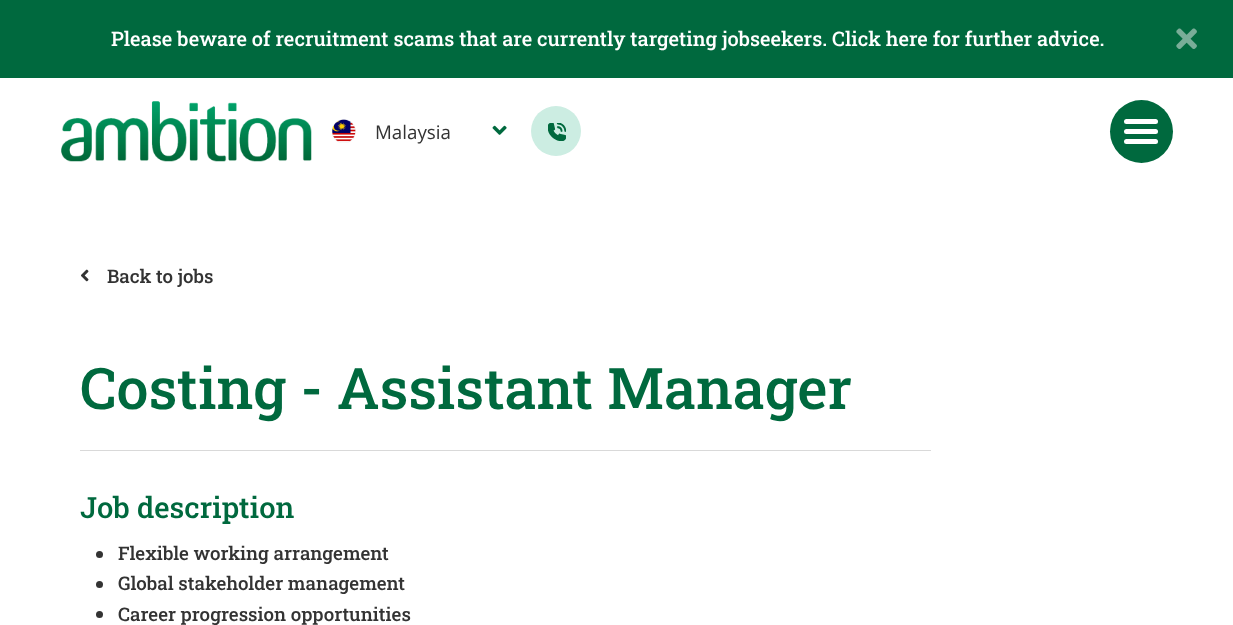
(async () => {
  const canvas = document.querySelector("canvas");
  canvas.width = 1233;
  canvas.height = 625;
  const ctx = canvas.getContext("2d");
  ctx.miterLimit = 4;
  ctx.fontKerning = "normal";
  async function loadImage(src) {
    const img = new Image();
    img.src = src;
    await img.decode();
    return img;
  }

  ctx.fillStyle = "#ffffff";
  ctx.fillRect(0, 0, 1233, 625);
  ctx.fillStyle = "#00693e";
  ctx.fillRect(0, 0, 1233, 78);
  ctx.drawImage(await loadImage("img/1.png"), 1176, 28, 21, 21);
  ctx.drawImage(await loadImage("img/2.png"), 61, 101, 251, 61);
  ctx.drawImage(await loadImage("img/3.png"), 332, 119, 24, 24);
  ctx.drawImage(await loadImage("img/4.png"), 492, 125, 15, 10);
  ctx.fillStyle = "#ccede2";
  ctx.beginPath();
  ctx.arc(556, 131, 25, 0, Math.PI * 2);
  ctx.fill();
  ctx.drawImage(await loadImage("img/5.png"), 548, 123, 18, 18);
  ctx.fillStyle = "#00693e";
  ctx.beginPath();
  ctx.arc(1141.5, 131.5, 31.5, 0, Math.PI * 2);
  ctx.fill();
  ctx.fillStyle = "#ffffff";
  ctx.beginPath();
  ctx.roundRect(1124, 119, 34, 5, 2.5);
  ctx.fill();
  ctx.beginPath();
  ctx.roundRect(1124, 129, 34, 5, 2.5);
  ctx.fill();
  ctx.beginPath();
  ctx.roundRect(1124, 139, 34, 5, 2.5);
  ctx.fill();
  ctx.drawImage(await loadImage("img/6.png"), 81, 269, 8, 13);
  ctx.fillStyle = "#d9d9d9";
  ctx.fillRect(80, 450, 851, 1);
  ctx.fillStyle = "#333333";
  ctx.beginPath();
  ctx.arc(99.5, 554.5, 3.5, 0, Math.PI * 2);
  ctx.fill();
  ctx.beginPath();
  ctx.arc(99.5, 584.5, 3.5, 0, Math.PI * 2);
  ctx.fill();
  ctx.beginPath();
  ctx.arc(99.5, 614.5, 3.5, 0, Math.PI * 2);
  ctx.fill();
  ctx.font = "500 20px Roboto Slab";
  ctx.fillStyle = "#ffffff";
  ctx.fillText("Please beware of recruitment scams that are currently targeting jobseekers. Click here for further advice.", 111, 46);
  ctx.font = "18.75px Open Sans";
  ctx.fillStyle = "#333333";
  ctx.fillText("Malaysia", 375, 139);
  ctx.font = "500 18.75px Roboto Slab";
  ctx.fillText("Back to jobs", 107, 283);
  ctx.font = "500 57.25px Roboto Slab";
  ctx.fillStyle = "#00693e";
  ctx.fillText("Costing - Assistant Manager", 80, 409);
  ctx.font = "500 29.25px Roboto Slab";
  ctx.fillText("Job description", 80, 518);
  ctx.font = "500 18.75px Roboto Slab";
  ctx.fillStyle = "#333333";
  for (const [text, x, y] of [
    ["Flexible working arrangement", 118, 560],
    ["Global stakeholder management", 118, 590],
    ["Career progression opportunities", 118, 621],
  ]) {
    ctx.fillText(text, x, y);
  }
})();
